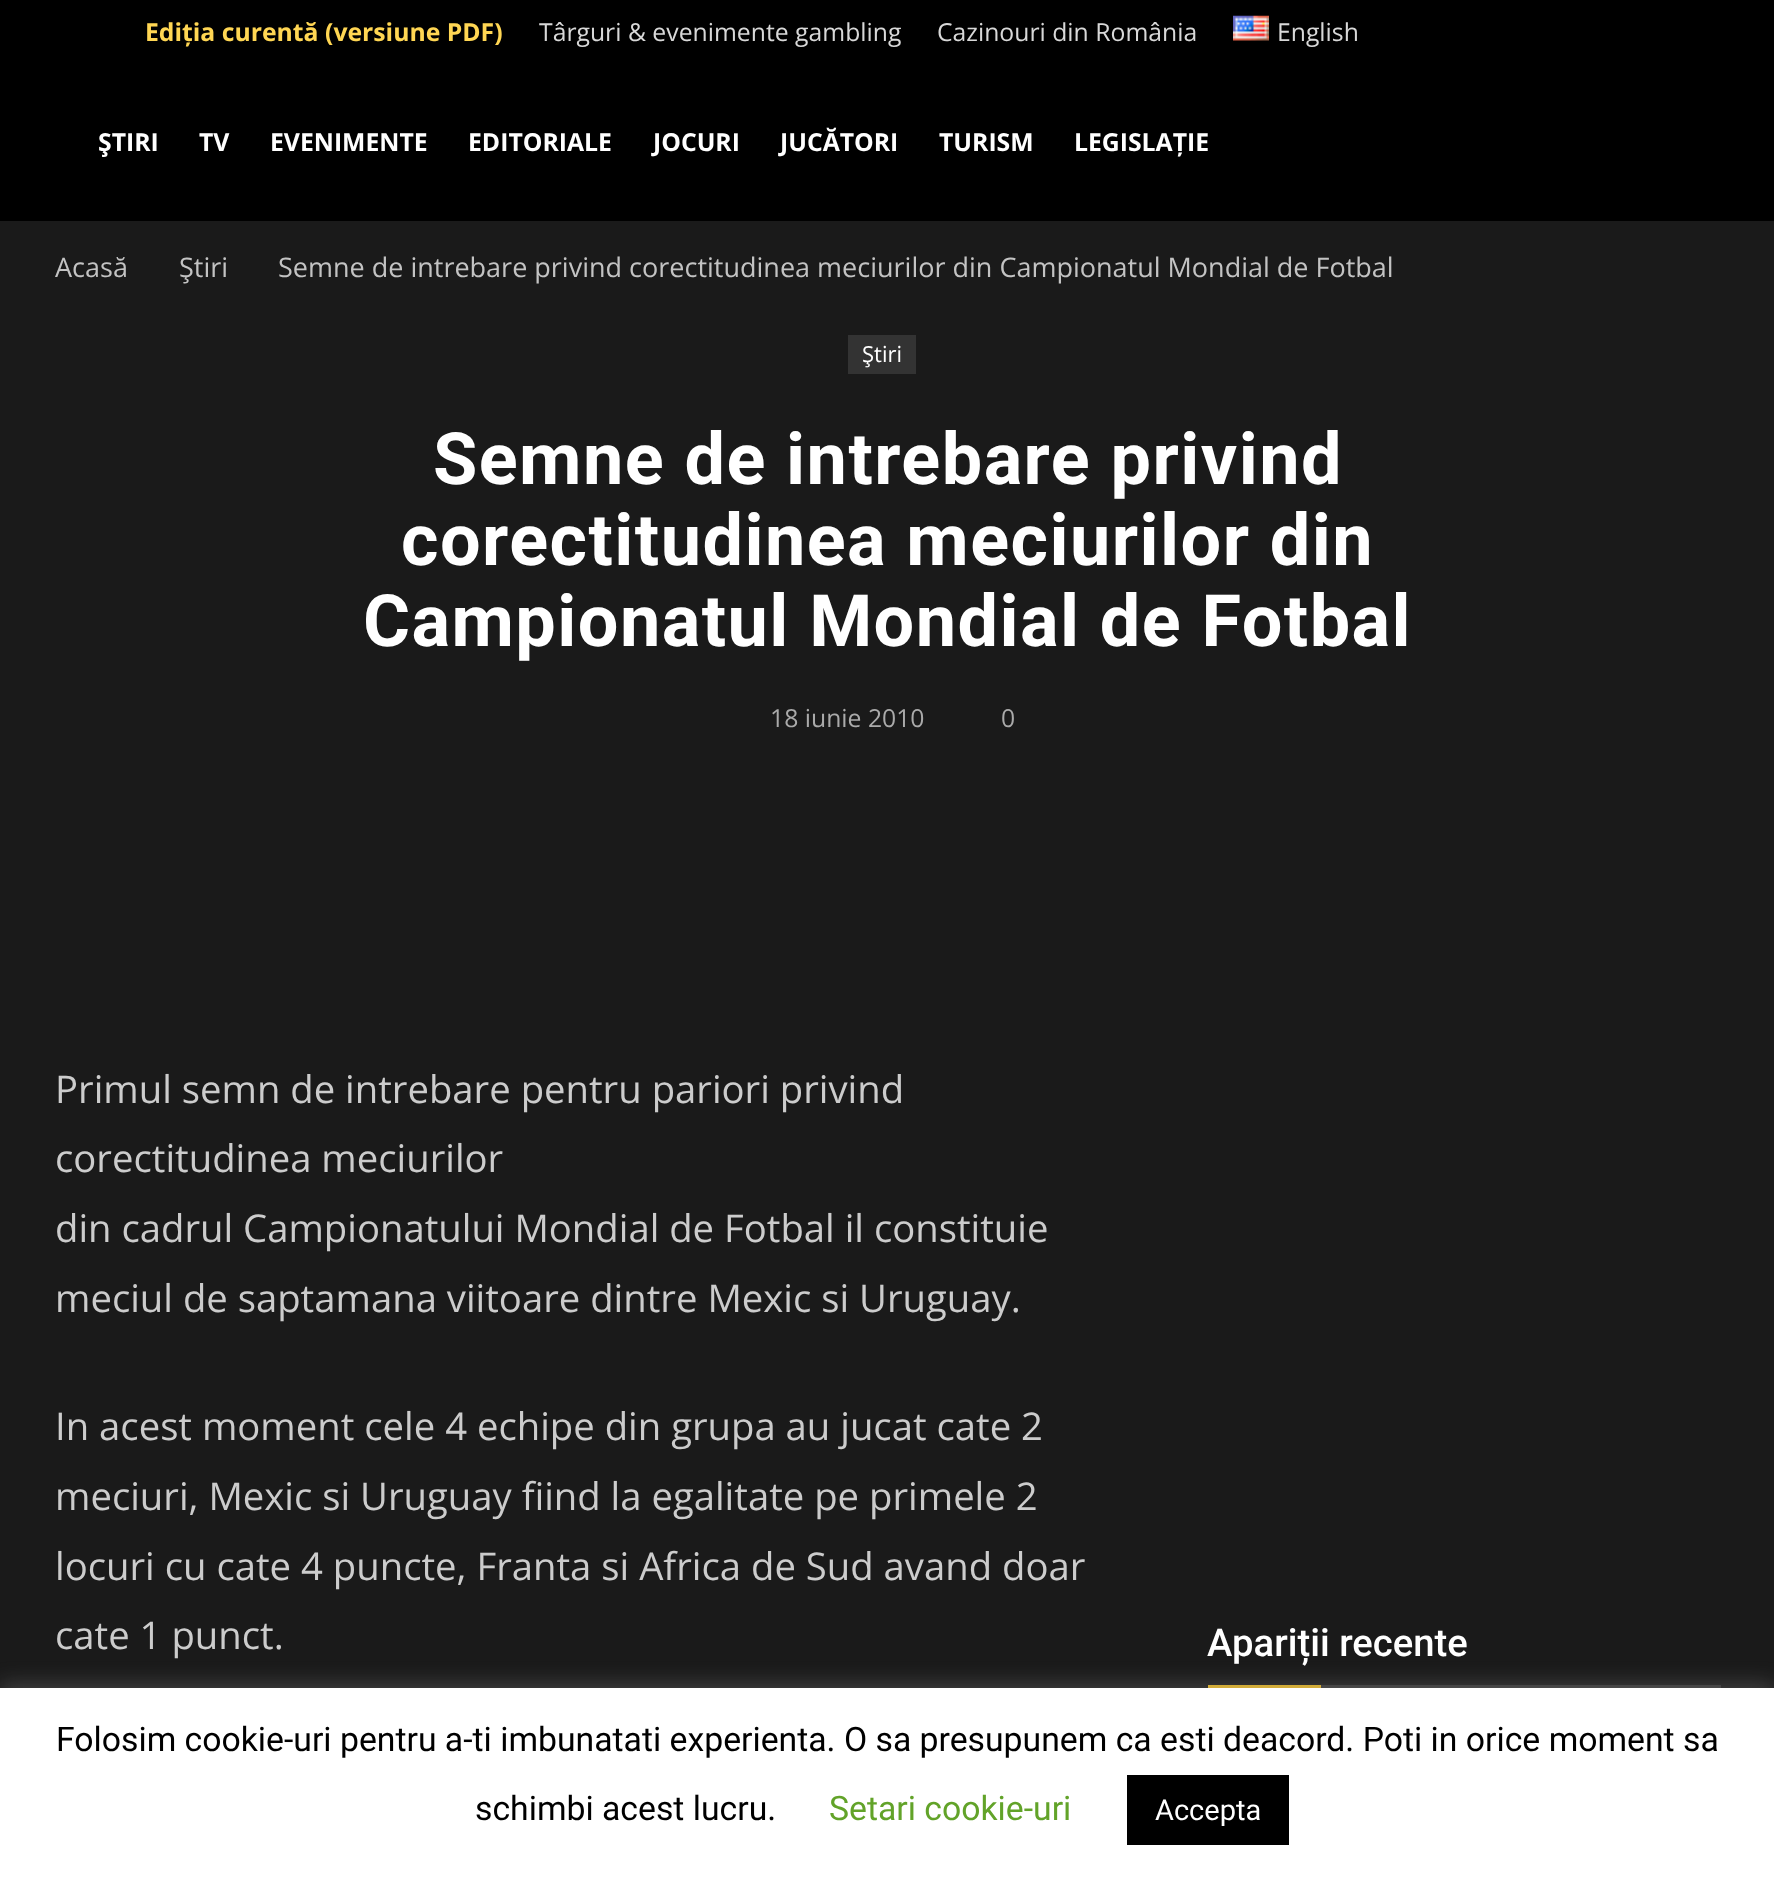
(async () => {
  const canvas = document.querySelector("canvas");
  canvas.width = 1774;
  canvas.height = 1882;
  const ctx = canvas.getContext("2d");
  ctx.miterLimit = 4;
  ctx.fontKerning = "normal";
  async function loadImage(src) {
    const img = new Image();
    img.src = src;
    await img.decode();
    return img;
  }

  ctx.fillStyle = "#1a1a1a";
  ctx.fillRect(0, 0, 1774, 1882);
  ctx.fillStyle = "#000000";
  ctx.fillRect(0, 0, 1774, 221);
  ctx.drawImage(await loadImage("img/1.png"), 1233, 15, 36, 26);
  for (const [x, y, w, h, color] of [
    [848, 335, 68, 39, "#333333"],
    [1208, 1685, 113, 3, "#daac22"],
    [1321, 1685, 400, 3, "#333333"],
  ]) {
    ctx.fillStyle = color;
    ctx.fillRect(x, y, w, h);
  }
  ctx.fillStyle = "rgba(172, 171, 171, 0.3)";
  ctx.filter = "blur(11px)";
  ctx.beginPath();
  ctx.rect(0, 1685, 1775, 196);
  ctx.fill();
  ctx.filter = "none";
  ctx.fillStyle = "#ffffff";
  ctx.fillRect(0, 1688, 1774, 194);
  ctx.fillStyle = "#000000";
  ctx.fillRect(1127, 1775, 162, 70);
  ctx.font = "bold 24.75px Open Sans";
  ctx.fillStyle = "#ffd653";
  ctx.fillText("Ediția curentă (versiune PDF)", 145, 41);
  ctx.font = "24.75px Open Sans";
  ctx.fillStyle = "#d8d8d8";
  for (const [text, x, y] of [
    ["Târguri & evenimente gambling", 539, 41],
    ["Cazinouri din România", 937, 41],
    ["English", 1277, 41],
  ]) {
    ctx.fillText(text, x, y);
  }
  ctx.font = "bold 24.75px Open Sans";
  ctx.fillStyle = "#ffffff";
  for (const [text, x, y] of [
    ["ŞTIRI", 98, 151],
    ["TV", 199, 151],
    ["EVENIMENTE", 270, 151],
    ["EDITORIALE", 468, 151],
    ["JOCURI", 653, 151],
    ["JUCĂTORI", 780, 151],
    ["TURISM", 939, 151],
    ["LEGISLAȚIE", 1074, 151],
  ]) {
    ctx.fillText(text, x, y);
  }
  ctx.font = "27px Open Sans";
  ctx.fillStyle = "#c3c3c3";
  for (const [text, x, y] of [
    ["Acasă", 55, 277],
    ["Ştiri", 179, 277],
    ["Semne de intrebare privind corectitudinea meciurilor din Campionatul Mondial de Fotbal", 278, 277],
  ]) {
    ctx.fillText(text, x, y);
  }
  ctx.font = "22px Open Sans";
  ctx.fillStyle = "#ffffff";
  ctx.fillText("Ştiri", 862, 362);
  ctx.letterSpacing = "1.45px";
  ctx.font = "bold 72px Roboto";
  for (const [text, x, y] of [
    ["Semne de intrebare privind", 433, 484],
    ["corectitudinea meciurilor din", 401, 565],
    ["Campionatul Mondial de Fotbal", 363, 646],
  ]) {
    ctx.fillText(text, x, y);
  }
  ctx.letterSpacing = "0px";
  ctx.font = "24.75px Open Sans";
  ctx.fillStyle = "#aaaaaa";
  ctx.fillText("18 iunie 2010", 770, 727);
  ctx.fillText("0", 1001, 727);
  ctx.font = "38.25px Open Sans";
  ctx.fillStyle = "#cccccc";
  for (const [text, x, y] of [
    ["Primul semn de intrebare pentru pariori privind", 55, 1103],
    ["corectitudinea meciurilor", 55, 1172],
    ["din cadrul Campionatului Mondial de Fotbal il constituie", 55, 1242],
    ["meciul de saptamana viitoare dintre Mexic si Uruguay.", 55, 1312],
    ["In acest moment cele 4 echipe din grupa au jucat cate 2", 55, 1440],
    ["meciuri, Mexic si Uruguay fiind la egalitate pe primele 2", 55, 1510],
    ["locuri cu cate 4 puncte, Franta si Africa de Sud avand doar", 55, 1580],
    ["cate 1 punct.", 55, 1649],
  ]) {
    ctx.fillText(text, x, y);
  }
  ctx.font = "500 38.25px Roboto";
  ctx.fillStyle = "#ffffff";
  ctx.fillText("Apariții recente", 1207, 1656);
  ctx.font = "33.75px Roboto";
  ctx.fillStyle = "#000000";
  ctx.fillText("Folosim cookie-uri pentru a-ti imbunatati experienta. O sa presupunem ca esti deacord. Poti in orice moment sa", 56, 1751);
  ctx.fillText("schimbi acest lucru.", 475, 1820);
  ctx.fillStyle = "#62a329";
  ctx.fillText("Setari cookie-uri", 829, 1820);
  ctx.font = "29px Roboto";
  ctx.fillStyle = "#ffffff";
  ctx.fillText("Accepta", 1155, 1820);
})();
